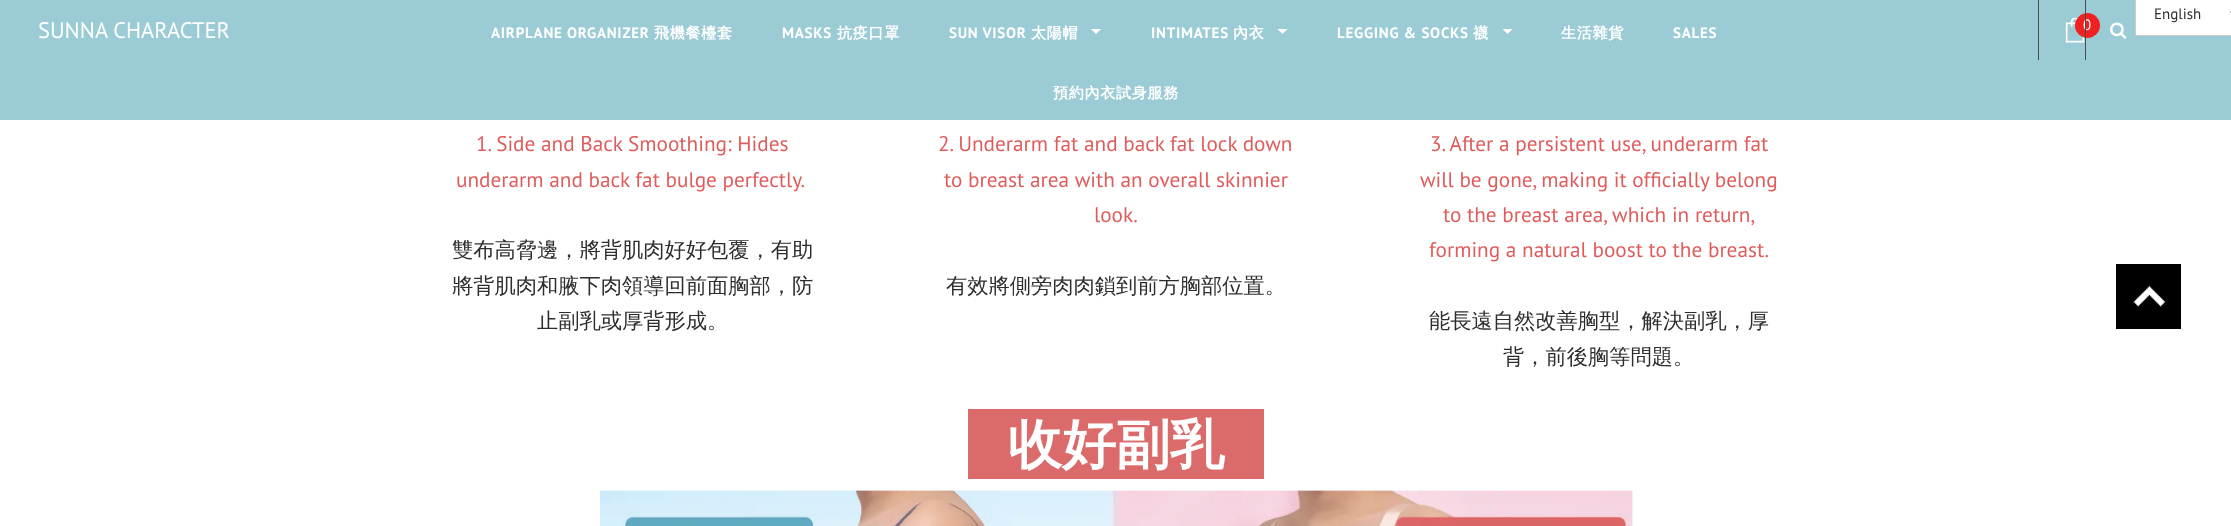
(async () => {
  const canvas = document.querySelector("canvas");
  canvas.width = 2231;
  canvas.height = 526;
  const ctx = canvas.getContext("2d");
  ctx.miterLimit = 4;
  ctx.fontKerning = "normal";
  async function loadImage(src) {
    const img = new Image();
    img.src = src;
    await img.decode();
    return img;
  }
  let path;

  ctx.fillStyle = "#ffffff";
  ctx.fillRect(0, 0, 2231, 526);
  ctx.fillStyle = "#9bccd5";
  ctx.fillRect(0, 0, 2231, 120);
  ctx.drawImage(await loadImage("img/1.png"), 2110, 22, 17, 17);
  ctx.fillStyle = "#ffffff";
  ctx.beginPath();
  ctx.rect(2135.5, -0.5, 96, 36);
  ctx.fill();
  ctx.strokeStyle = "#cbcbcb";
  ctx.stroke();
  path = new Path2D("M2231 11L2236 16L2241 11");
  ctx.strokeStyle = "#2d2d2d";
  ctx.lineWidth = 2.5;
  ctx.stroke(path);
  ctx.fillStyle = "#4d4d4d";
  ctx.fillRect(2038, 0, 1, 60);
  ctx.drawImage(await loadImage("img/2.png"), 2065, 18, 20, 25);
  ctx.fillStyle = "#f02121";
  ctx.beginPath();
  ctx.arc(2087.5, 25.5, 12.5, 0, Math.PI * 2);
  ctx.fill();
  ctx.fillStyle = "#ffffff";
  path = new Path2D("M1091 29H1101L1096 34Z");
  ctx.fill(path);
  path = new Path2D("M1277.5 29H1287.5L1282.5 34Z");
  ctx.fill(path);
  path = new Path2D("M1502.5 29H1512.5L1507.5 34Z");
  ctx.fill(path);
  ctx.fillStyle = "#db6b6b";
  ctx.fillRect(968, 409, 296, 70);
  ctx.drawImage(await loadImage("img/3.png"), 600, 490, 1033, 36);
  ctx.fillStyle = "#000000";
  ctx.fillRect(2116, 264, 65, 65);
  ctx.drawImage(await loadImage("img/4.png"), 2133, 286, 33, 21);
  ctx.font = "15px PT Sans";
  ctx.fillStyle = "#2d2d2d";
  ctx.fillText("English", 2154, 19);
  ctx.fillStyle = "#ffffff";
  ctx.fillText("0", 2083, 30);
  ctx.fillStyle = "#4d4d4d";
  ctx.fillRect(2085, 0, 1, 60);
  ctx.font = "22.5px PT Sans";
  ctx.fillStyle = "#ffffff";
  ctx.fillText("SUNNA CHARACTER", 38, 38);
  ctx.letterSpacing = "0.75px";
  ctx.font = "bold 15px PT Sans";
  ctx.fillText("AIRPLANE ORGANIZER", 491, 38);
  ctx.font = "bold 15px WenQuanYi Zen Hei";
  ctx.fillText("飛機餐檯套", 654, 38);
  ctx.font = "bold 15px PT Sans";
  ctx.fillText("MASKS", 782, 38);
  ctx.font = "bold 15px WenQuanYi Zen Hei";
  ctx.fillText("抗疫口罩", 837, 38);
  ctx.font = "bold 15px PT Sans";
  ctx.fillText("SUN VISOR", 949, 38);
  ctx.font = "bold 15px WenQuanYi Zen Hei";
  ctx.fillText("太陽帽", 1031, 38);
  ctx.font = "bold 15px PT Sans";
  ctx.fillText("INTIMATES", 1151, 38);
  ctx.font = "bold 15px WenQuanYi Zen Hei";
  ctx.fillText("內衣", 1233, 38);
  ctx.font = "bold 15px PT Sans";
  ctx.fillText("LEGGING & SOCKS", 1337, 38);
  ctx.font = "bold 15px WenQuanYi Zen Hei";
  ctx.fillText("襪", 1473, 38);
  ctx.fillText("生活雜貨", 1561, 38);
  ctx.font = "bold 15px PT Sans";
  ctx.fillText("SALES", 1673, 38);
  ctx.font = "bold 15px WenQuanYi Zen Hei";
  ctx.fillText("預約內衣試身服務", 1053, 98);
  ctx.letterSpacing = "0px";
  ctx.font = "21.25px PT Sans";
  ctx.fillStyle = "#df5c5c";
  ctx.fillText("1. Side and Back Smoothing: Hides", 476, 151);
  ctx.fillText("underarm and back fat bulge perfectly.", 456, 187);
  ctx.font = "500 21.25px WenQuanYi Zen Hei";
  ctx.fillStyle = "#2d2d2d";
  for (const [text, x, y] of [
    ["雙布高脅邊，將背肌肉好好包覆，有助", 452, 257],
    ["將背肌肉和腋下肉領導回前面胸部，防", 452, 293],
    ["止副乳或厚背形成。", 537, 328],
  ]) {
    ctx.fillText(text, x, y);
  }
  ctx.font = "21.25px PT Sans";
  ctx.fillStyle = "#df5c5c";
  for (const [text, x, y] of [
    ["2. Underarm fat and back fat lock down", 938, 151],
    ["to breast area with an overall skinnier", 944, 187],
    ["look.", 1094, 222],
  ]) {
    ctx.fillText(text, x, y);
  }
  ctx.font = "500 21.25px WenQuanYi Zen Hei";
  ctx.fillStyle = "#2d2d2d";
  ctx.fillText("有效將側旁肉肉鎖到前方胸部位置。", 946, 293);
  ctx.font = "21.25px PT Sans";
  ctx.fillStyle = "#df5c5c";
  for (const [text, x, y] of [
    ["3. After a persistent use, underarm fat", 1430, 151],
    ["will be gone, making it officially belong", 1420, 187],
    ["to the breast area, which in return,", 1443, 222],
    ["forming a natural boost to the breast.", 1429, 257],
  ]) {
    ctx.fillText(text, x, y);
  }
  ctx.font = "500 21.25px WenQuanYi Zen Hei";
  ctx.fillStyle = "#2d2d2d";
  ctx.fillText("能長遠自然改善胸型，解決副乳，厚", 1429, 328);
  ctx.fillText("背，前後胸等問題。", 1503, 364);
  ctx.font = "bold 54px WenQuanYi Zen Hei";
  ctx.fillStyle = "#ffffff";
  ctx.fillText("收好副乳", 1008, 463);
})();
